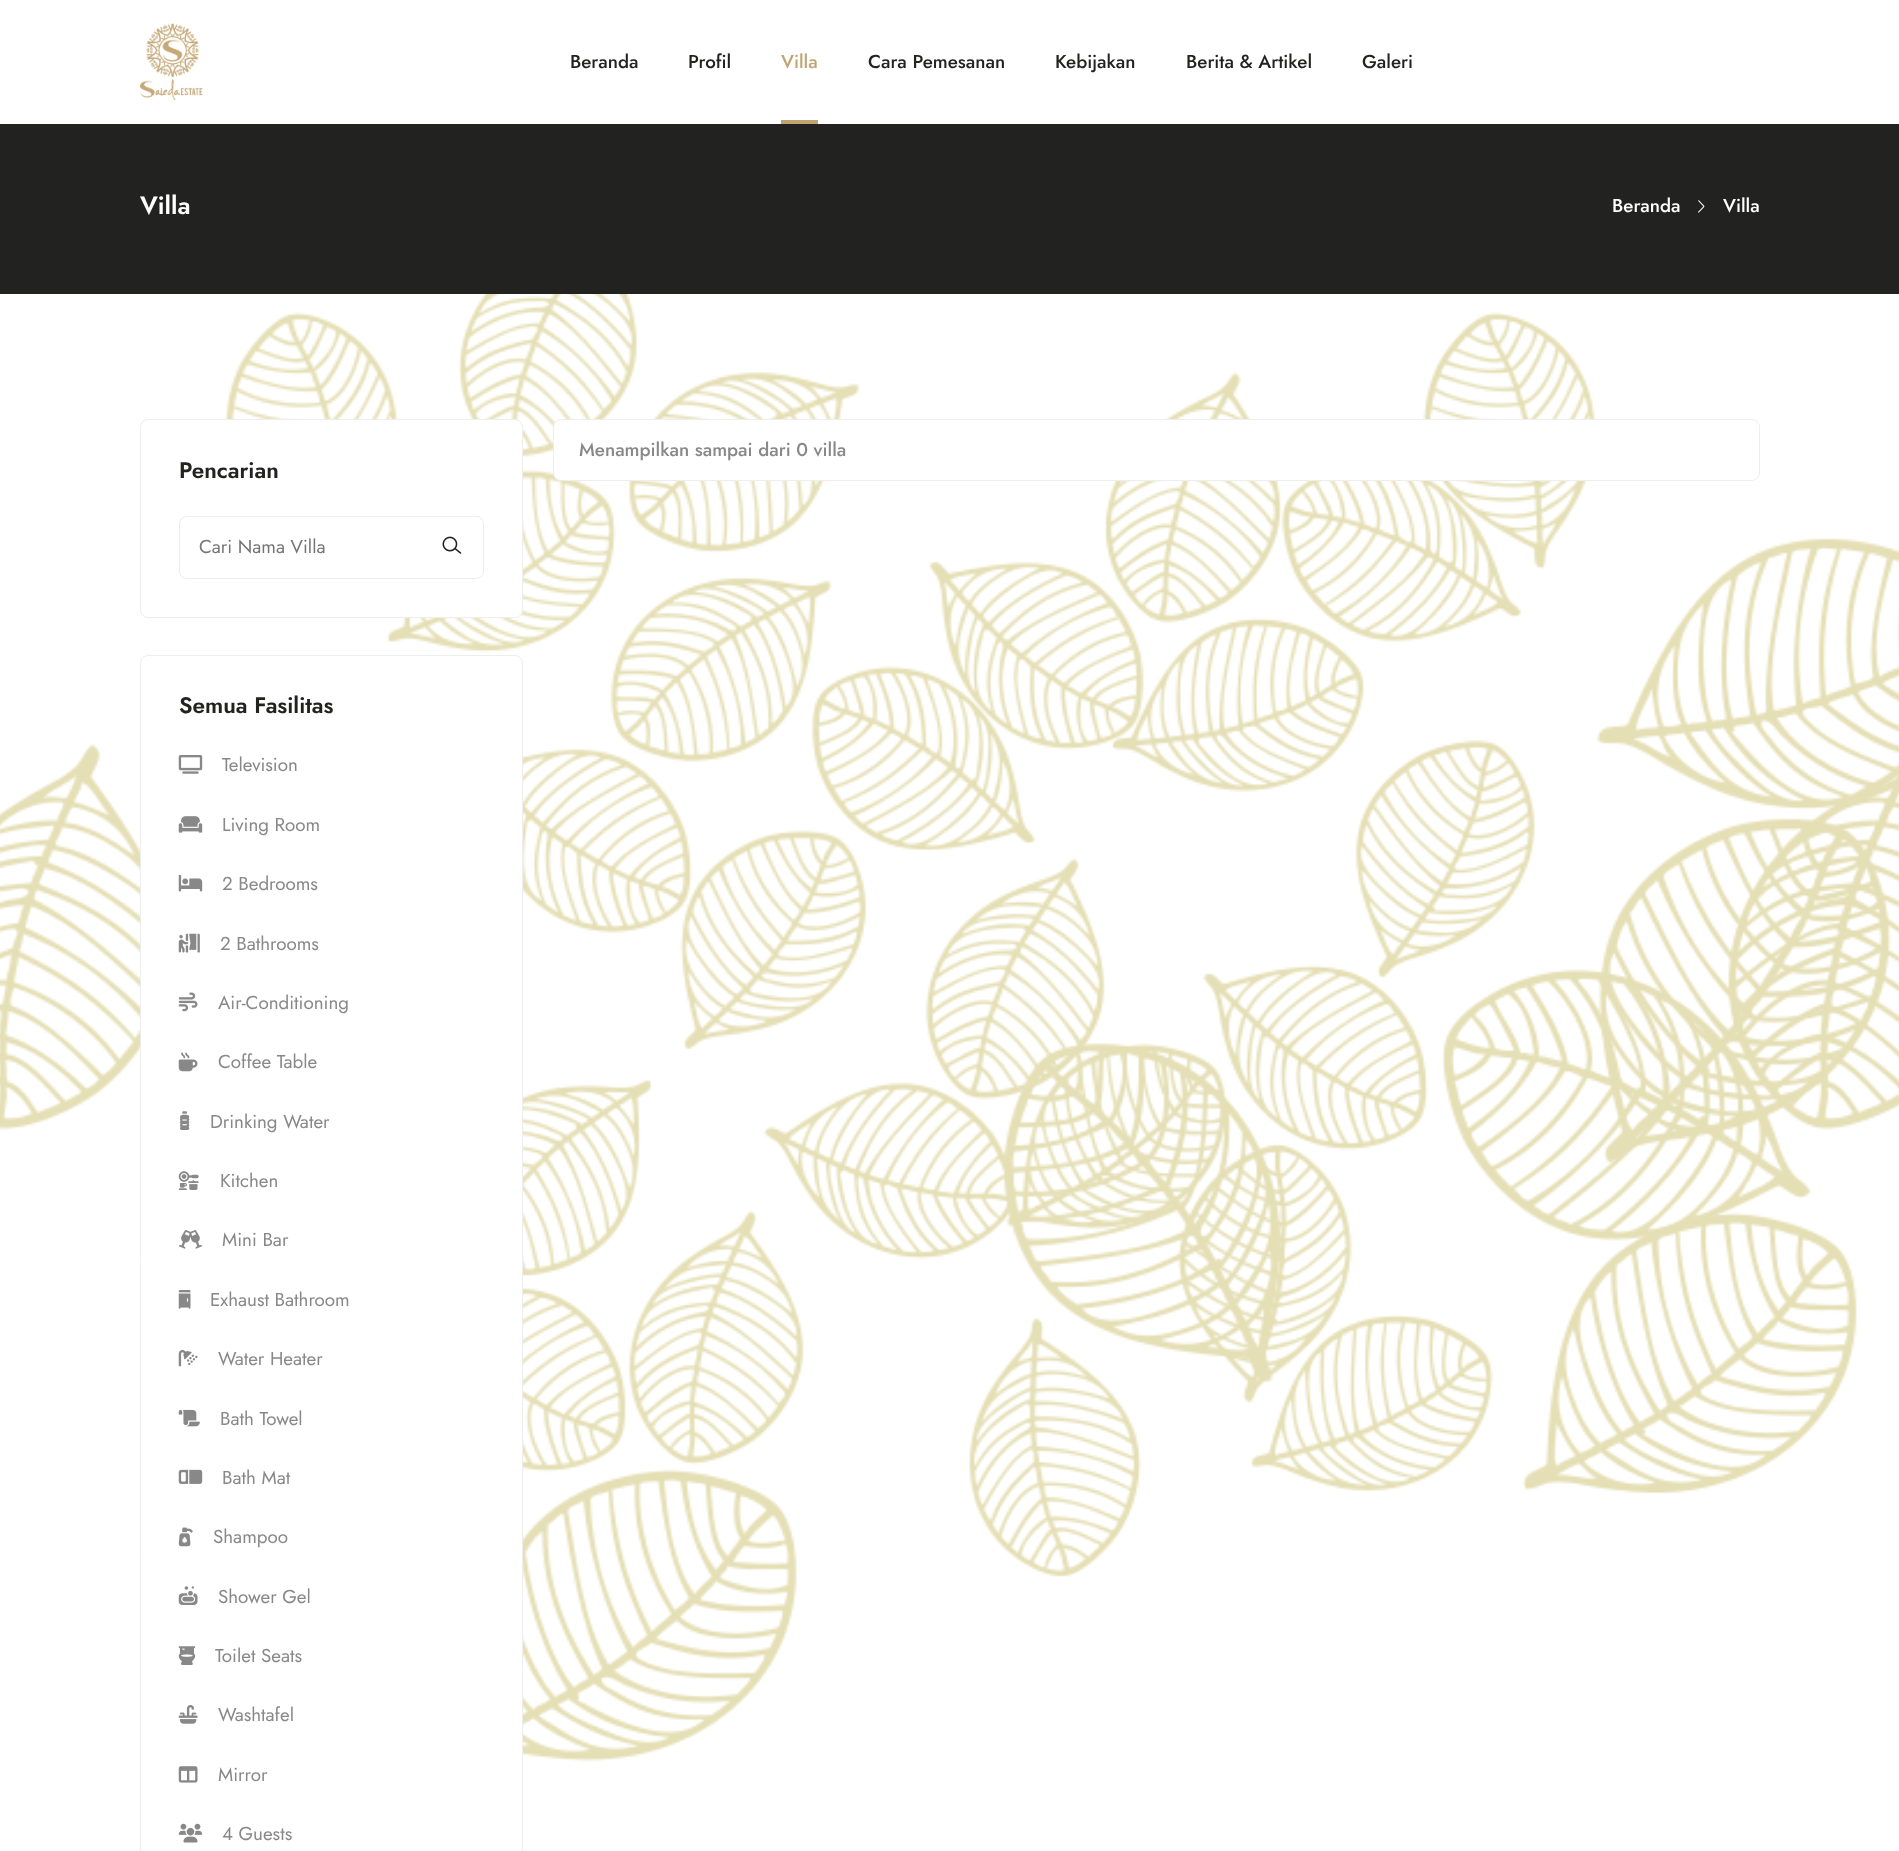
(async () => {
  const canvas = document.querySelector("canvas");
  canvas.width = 1899;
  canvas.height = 1851;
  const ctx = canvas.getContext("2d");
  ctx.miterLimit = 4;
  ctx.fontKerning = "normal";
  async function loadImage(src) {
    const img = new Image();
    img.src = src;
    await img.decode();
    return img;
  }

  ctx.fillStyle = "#ffffff";
  ctx.fillRect(0, 0, 1899, 1851);
  ctx.drawImage(await loadImage("img/1.png"), 0, 294, 1899, 1468);
  ctx.drawImage(await loadImage("img/2.png"), 140, 23, 63, 77);
  ctx.fillStyle = "#c2a372";
  ctx.fillRect(781, 120, 37, 4);
  ctx.fillStyle = "#222221";
  ctx.fillRect(0, 124, 1899, 170);
  ctx.drawImage(await loadImage("img/3.png"), 1698, 200, 7, 13);
  ctx.fillStyle = "#ffffff";
  ctx.beginPath();
  ctx.roundRect(553.5, 419.5, 1206, 61, 7.5);
  ctx.fill();
  ctx.strokeStyle = "#eeeeee";
  ctx.stroke();
  ctx.beginPath();
  ctx.roundRect(140.5, 419.5, 382, 198, 7.5);
  ctx.fill();
  ctx.stroke();
  ctx.beginPath();
  ctx.roundRect(179.5, 516.5, 304, 62, 7.5);
  ctx.stroke();
  ctx.drawImage(await loadImage("img/4.png"), 442, 536, 20, 18);
  ctx.beginPath();
  ctx.roundRect(140.5, 655.5, 382, 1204, 7.5);
  ctx.fill();
  ctx.stroke();
  ctx.drawImage(await loadImage("img/5.png"), 178, 755, 25, 19);
  ctx.drawImage(await loadImage("img/6.png"), 178, 816, 25, 17);
  ctx.drawImage(await loadImage("img/7.png"), 178, 874, 25, 18);
  ctx.drawImage(await loadImage("img/8.png"), 178, 933, 22, 20);
  ctx.drawImage(await loadImage("img/9.png"), 178, 992, 20, 20);
  ctx.drawImage(await loadImage("img/10.png"), 178, 1052, 20, 20);
  ctx.drawImage(await loadImage("img/11.png"), 180, 1111, 10, 19);
  ctx.drawImage(await loadImage("img/12.png"), 178, 1171, 21, 19);
  ctx.drawImage(await loadImage("img/13.png"), 178, 1230, 25, 19);
  ctx.drawImage(await loadImage("img/14.png"), 178, 1290, 13, 19);
  ctx.drawImage(await loadImage("img/15.png"), 178, 1349, 20, 18);
  ctx.drawImage(await loadImage("img/16.png"), 178, 1409, 22, 18);
  ctx.drawImage(await loadImage("img/17.png"), 178, 1469, 25, 15);
  ctx.drawImage(await loadImage("img/18.png"), 178, 1527, 15, 20);
  ctx.drawImage(await loadImage("img/19.png"), 178, 1586, 20, 19);
  ctx.drawImage(await loadImage("img/20.png"), 178, 1646, 18, 19);
  ctx.drawImage(await loadImage("img/21.png"), 178, 1705, 20, 19);
  ctx.drawImage(await loadImage("img/22.png"), 178, 1766, 20, 17);
  ctx.drawImage(await loadImage("img/23.png"), 178, 1823, 25, 20);
  ctx.font = "500 18.75px Jost";
  ctx.fillStyle = "#222221";
  ctx.fillText("Beranda", 570, 68);
  ctx.fillText("Profil", 688, 68);
  ctx.fillStyle = "#c2a372";
  ctx.fillText("Villa", 781, 68);
  ctx.fillStyle = "#222221";
  for (const [text, x, y] of [
    ["Cara Pemesanan", 868, 68],
    ["Kebijakan", 1055, 68],
    ["Berita & Artikel", 1186, 68],
    ["Galeri", 1362, 68],
  ]) {
    ctx.fillText(text, x, y);
  }
  ctx.font = "600 25px Jost";
  ctx.fillStyle = "#ffffff";
  ctx.fillText("Villa", 140, 214);
  ctx.font = "500 18.75px Jost";
  ctx.fillText("Beranda", 1612, 212);
  ctx.fillText("Villa", 1723, 212);
  ctx.fillStyle = "#888888";
  ctx.fillText("Menampilkan sampai dari 0 villa", 579, 456);
  ctx.font = "600 22.5px Jost";
  ctx.fillStyle = "#222221";
  ctx.fillText("Pencarian", 179, 478);
  ctx.font = "18.75px Jost";
  ctx.fillStyle = "#757575";
  ctx.fillText("Cari Nama Villa", 199, 553);
  ctx.font = "600 22.5px Jost";
  ctx.fillStyle = "#222221";
  ctx.fillText("Semua Fasilitas", 179, 713);
  ctx.font = "18.75px Jost";
  ctx.fillStyle = "#888888";
  for (const [text, x, y] of [
    ["Television", 222, 771],
    ["Living Room", 222, 831],
    ["2 Bedrooms", 222, 890],
    ["2 Bathrooms", 220, 950],
    ["Air-Conditioning", 218, 1009],
    ["Coffee Table", 218, 1068],
    ["Drinking Water", 210, 1128],
    ["Kitchen", 220, 1187],
    ["Mini Bar", 222, 1246],
    ["Exhaust Bathroom", 210, 1306],
    ["Water Heater", 218, 1365],
    ["Bath Towel", 220, 1425],
    ["Bath Mat", 222, 1484],
    ["Shampoo", 213, 1543],
    ["Shower Gel", 218, 1603],
    ["Toilet Seats", 215, 1662],
    ["Washtafel", 218, 1721],
    ["Mirror", 218, 1781],
    ["4 Guests", 222, 1840],
  ]) {
    ctx.fillText(text, x, y);
  }
})();
